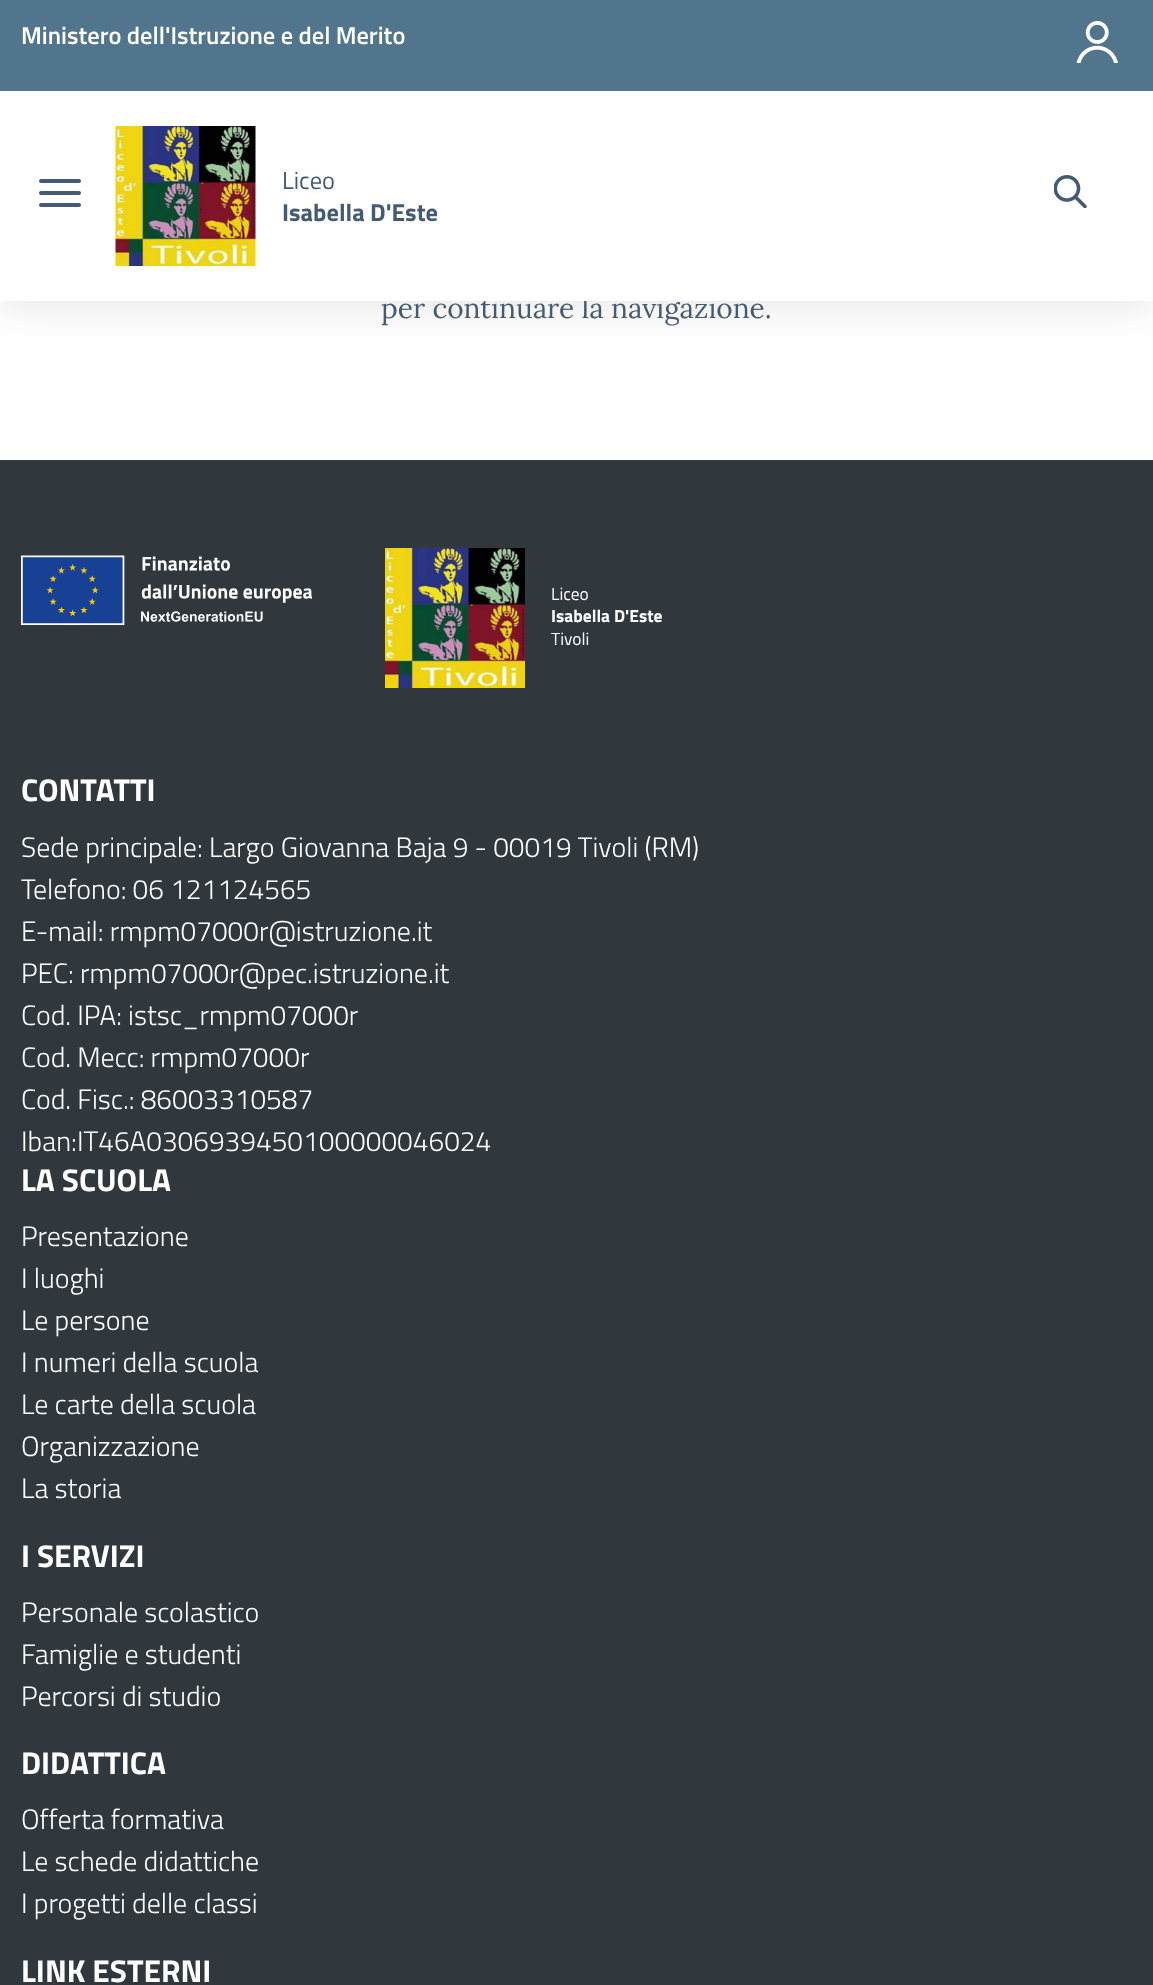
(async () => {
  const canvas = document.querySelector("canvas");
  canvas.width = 1153;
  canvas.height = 1985;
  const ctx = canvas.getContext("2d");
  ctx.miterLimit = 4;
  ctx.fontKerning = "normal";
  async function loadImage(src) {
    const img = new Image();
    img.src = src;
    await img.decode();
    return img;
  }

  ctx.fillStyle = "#ffffff";
  ctx.fillRect(0, 0, 1153, 1985);
  ctx.fillStyle = "rgba(0, 0, 0, 0.1)";
  ctx.filter = "blur(21.5px)";
  ctx.beginPath();
  ctx.rect(0, 4, 1153, 301);
  ctx.fill();
  ctx.filter = "none";
  ctx.fillStyle = "#51758d";
  ctx.fillRect(0, 0, 1153, 91);
  ctx.drawImage(await loadImage("img/1.png"), 1076, 21, 42, 42);
  ctx.fillStyle = "#30373d";
  ctx.fillRect(0, 460, 1153, 1525);
  ctx.drawImage(await loadImage("img/4.png"), 21, 555, 292, 70);
  ctx.drawImage(await loadImage("img/5.png"), 385, 548, 140, 140);
  ctx.font = "600 24.5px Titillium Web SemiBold";
  ctx.fillStyle = "#ffffff";
  ctx.fillText("Ministero dell'Istruzione e del Merito", 21, 44);
  ctx.font = "28px Lora";
  ctx.fillStyle = "#455b71";
  ctx.fillText("per continuare la navigazione.", 381, 318);
  ctx.fillStyle = "#ffffff";
  ctx.fillRect(0, 91, 1153, 210);
  ctx.drawImage(await loadImage("img/3.png"), 1054, 175, 33, 33);
  ctx.fillStyle = "#455b71";
  ctx.beginPath();
  ctx.roundRect(39, 203, 42, 4, 2);
  ctx.fill();
  ctx.beginPath();
  ctx.roundRect(39, 179, 42, 4, 2);
  ctx.fill();
  ctx.beginPath();
  ctx.roundRect(39, 191, 42, 4, 2);
  ctx.fill();
  ctx.font = "bold 24.5px Titillium Web";
  ctx.fillText("Isabella D'Este", 282, 221);
  ctx.font = "24.5px Titillium Web";
  ctx.fillText("Liceo", 282, 189);
  ctx.drawImage(await loadImage("img/2.png"), 115, 126, 141, 140);
  ctx.font = "17.5px Titillium Web";
  ctx.fillStyle = "#ffffff";
  ctx.fillText("Liceo", 551, 600);
  ctx.font = "bold 17.5px Titillium Web";
  ctx.fillText("Isabella D'Este", 551, 622);
  ctx.font = "17.5px Titillium Web";
  ctx.fillText("Tivoli", 551, 645);
  ctx.font = "bold 31.5px Titillium Web";
  ctx.fillText("CONTATTI", 21, 801);
  ctx.font = "300 28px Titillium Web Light";
  for (const [text, x, y] of [
    ["Sede principale: Largo Giovanna Baja 9 - 00019 Tivoli (RM)", 21, 857],
    ["Telefono: 06 121124565", 21, 899],
    ["E-mail: rmpm07000r@istruzione.it", 21, 941],
    ["PEC: rmpm07000r@pec.istruzione.it", 21, 983],
    ["Cod. IPA: istsc_rmpm07000r", 21, 1025],
    ["Cod. Mecc: rmpm07000r", 21, 1067],
    ["Cod. Fisc.: 86003310587", 21, 1109],
    ["Iban:IT46A0306939450100000046024", 21, 1151],
  ]) {
    ctx.fillText(text, x, y);
  }
  ctx.font = "bold 31.5px Titillium Web";
  ctx.fillText("LA SCUOLA", 21, 1191);
  ctx.font = "300 28px Titillium Web Light";
  for (const [text, x, y] of [
    ["Presentazione", 21, 1246],
    ["I luoghi", 21, 1288],
    ["Le persone", 21, 1330],
    ["I numeri della scuola", 21, 1372],
    ["Le carte della scuola", 21, 1414],
    ["Organizzazione", 21, 1456],
    ["La storia", 21, 1498],
  ]) {
    ctx.fillText(text, x, y);
  }
  ctx.font = "bold 31.5px Titillium Web";
  ctx.fillText("I SERVIZI", 21, 1567);
  ctx.font = "300 28px Titillium Web Light";
  for (const [text, x, y] of [
    ["Personale scolastico", 21, 1622],
    ["Famiglie e studenti", 21, 1664],
    ["Percorsi di studio", 21, 1706],
  ]) {
    ctx.fillText(text, x, y);
  }
  ctx.font = "bold 31.5px Titillium Web";
  ctx.fillText("DIDATTICA", 21, 1774);
  ctx.font = "300 28px Titillium Web Light";
  for (const [text, x, y] of [
    ["Offerta formativa", 21, 1829],
    ["Le schede didattiche", 21, 1871],
    ["I progetti delle classi", 21, 1913],
  ]) {
    ctx.fillText(text, x, y);
  }
  ctx.font = "bold 31.5px Titillium Web";
  ctx.fillText("LINK ESTERNI", 21, 1982);
})();
